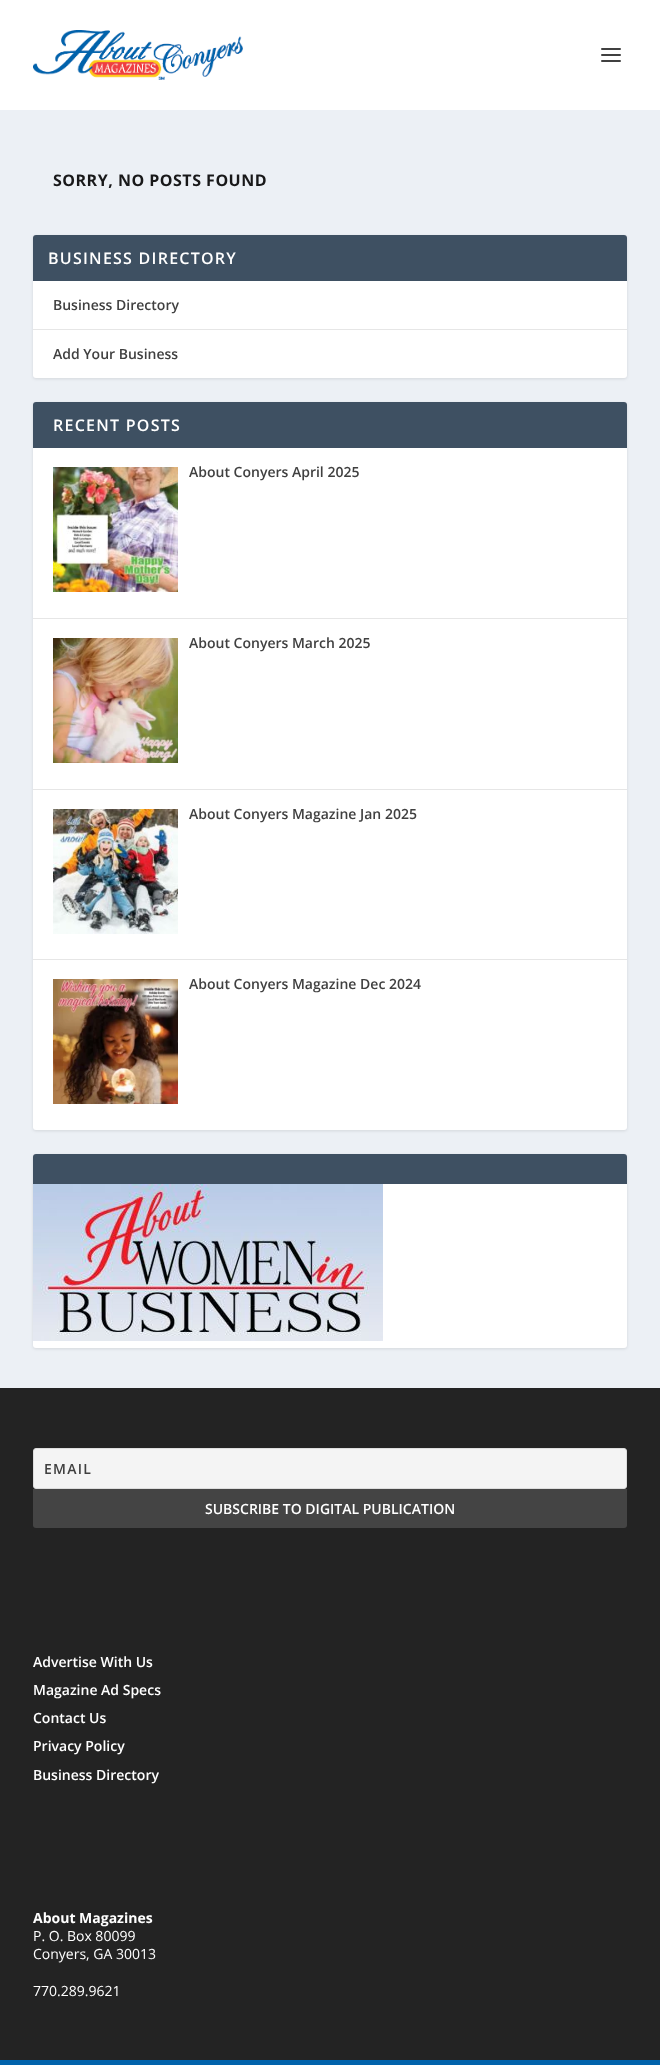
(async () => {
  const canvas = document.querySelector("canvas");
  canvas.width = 660;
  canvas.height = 2065;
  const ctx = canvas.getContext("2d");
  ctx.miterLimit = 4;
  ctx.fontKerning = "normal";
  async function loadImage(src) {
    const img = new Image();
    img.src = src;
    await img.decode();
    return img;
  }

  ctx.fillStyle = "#ecf0f5";
  ctx.fillRect(0, 0, 660, 2065);
  ctx.fillStyle = "#ffffff";
  ctx.fillRect(0, 0, 660, 110);
  ctx.drawImage(await loadImage("img/1.png"), 33, 30, 210, 50);
  ctx.fillStyle = "#404040";
  ctx.beginPath();
  ctx.roundRect(601, 48, 20, 2, 1);
  ctx.fill();
  ctx.beginPath();
  ctx.roundRect(601, 54, 20, 2, 1);
  ctx.fill();
  ctx.beginPath();
  ctx.roundRect(601, 60, 20, 2, 1);
  ctx.fill();
  ctx.fillStyle = "rgba(0, 0, 0, 0.1)";
  ctx.filter = "blur(1.5px)";
  ctx.beginPath();
  ctx.roundRect(33, 236, 594, 143, 3);
  ctx.fill();
  ctx.filter = "none";
  ctx.fillStyle = "#ffffff";
  ctx.beginPath();
  ctx.roundRect(33, 235, 594, 143, 3);
  ctx.fill();
  ctx.fillStyle = "#3e5062";
  ctx.beginPath();
  ctx.roundRect(33, 235, 594, 46, [3, 3, 0, 0]);
  ctx.fill();
  ctx.fillStyle = "#e6e6e6";
  ctx.fillRect(33, 329, 594, 1);
  ctx.fillStyle = "rgba(0, 0, 0, 0.1)";
  ctx.filter = "blur(1.5px)";
  ctx.beginPath();
  ctx.roundRect(33, 403, 594, 728, 3);
  ctx.fill();
  ctx.filter = "none";
  ctx.fillStyle = "#ffffff";
  ctx.beginPath();
  ctx.roundRect(33, 402, 594, 728, 3);
  ctx.fill();
  ctx.fillStyle = "#3e5062";
  ctx.beginPath();
  ctx.roundRect(33, 402, 594, 46, [3, 3, 0, 0]);
  ctx.fill();
  ctx.fillStyle = "#e6e6e6";
  ctx.fillRect(33, 618, 594, 1);
  ctx.drawImage(await loadImage("img/2.png"), 53, 467, 125, 125);
  ctx.fillRect(33, 789, 594, 1);
  ctx.drawImage(await loadImage("img/3.png"), 53, 638, 125, 125);
  ctx.fillRect(33, 959, 594, 1);
  ctx.drawImage(await loadImage("img/4.png"), 53, 809, 125, 125);
  ctx.drawImage(await loadImage("img/5.png"), 53, 979, 125, 125);
  ctx.fillStyle = "rgba(0, 0, 0, 0.1)";
  ctx.filter = "blur(1.5px)";
  ctx.beginPath();
  ctx.roundRect(33, 1155, 594, 194, 3);
  ctx.fill();
  ctx.filter = "none";
  ctx.fillStyle = "#ffffff";
  ctx.beginPath();
  ctx.roundRect(33, 1154, 594, 194, 3);
  ctx.fill();
  ctx.fillStyle = "#3e5062";
  ctx.beginPath();
  ctx.roundRect(33, 1154, 594, 30, [3, 3, 0, 0]);
  ctx.fill();
  ctx.drawImage(await loadImage("img/6.png"), 33, 1184, 350, 157);
  ctx.fillStyle = "#232323";
  ctx.fillRect(0, 1388, 660, 672);
  ctx.fillStyle = "#f4f4f4";
  ctx.beginPath();
  ctx.roundRect(33.5, 1448.5, 593, 40, 2.5);
  ctx.fill();
  ctx.strokeStyle = "#dddddd";
  ctx.stroke();
  ctx.fillStyle = "#444444";
  ctx.beginPath();
  ctx.roundRect(33, 1489, 594, 39, [0, 0, 3, 3]);
  ctx.fill();
  ctx.fillStyle = "#0163ab";
  ctx.fillRect(0, 2060, 660, 5);
  ctx.letterSpacing = "0.5px";
  ctx.font = "bold 16px Open Sans";
  ctx.fillStyle = "#181819";
  ctx.fillText("SORRY, NO POSTS FOUND", 53, 186);
  ctx.letterSpacing = "1.25px";
  ctx.font = "600 16px Open Sans";
  ctx.fillStyle = "#ffffff";
  ctx.fillText("BUSINESS DIRECTORY", 48, 264);
  ctx.letterSpacing = "0px";
  ctx.font = "600 14px Open Sans";
  ctx.fillStyle = "#404040";
  ctx.fillText("Business Directory", 53, 310);
  ctx.fillText("Add Your Business", 53, 359);
  ctx.letterSpacing = "1.25px";
  ctx.font = "600 16px Open Sans";
  ctx.fillStyle = "#ffffff";
  ctx.fillText("RECENT POSTS", 53, 431);
  ctx.letterSpacing = "0px";
  ctx.font = "600 14px Open Sans";
  ctx.fillStyle = "#404040";
  for (const [text, x, y] of [
    ["About Conyers April 2025", 189, 477],
    ["About Conyers March 2025", 189, 648],
    ["About Conyers Magazine Jan 2025", 189, 819],
    ["About Conyers Magazine Dec 2024", 189, 989],
  ]) {
    ctx.fillText(text, x, y);
  }
  ctx.letterSpacing = "1.25px";
  ctx.fillText("EMAIL", 44, 1474);
  ctx.letterSpacing = "0px";
  ctx.fillStyle = "#ffffff";
  for (const [text, x, y] of [
    ["SUBSCRIBE TO DIGITAL PUBLICATION", 205, 1514],
    ["Advertise With Us", 33, 1667],
    ["Magazine Ad Specs", 33, 1695],
    ["Contact Us", 33, 1723],
    ["Privacy Policy", 33, 1751],
    ["Business Directory", 33, 1780],
  ]) {
    ctx.fillText(text, x, y);
  }
  ctx.font = "bold 14px Open Sans";
  ctx.fillText("About Magazines", 33, 1923);
  ctx.font = "14px Open Sans";
  for (const [text, x, y] of [
    ["P. O. Box 80099", 33, 1941],
    ["Conyers, GA 30013", 33, 1959],
    ["770.289.9621", 33, 1996],
  ]) {
    ctx.fillText(text, x, y);
  }
})();
